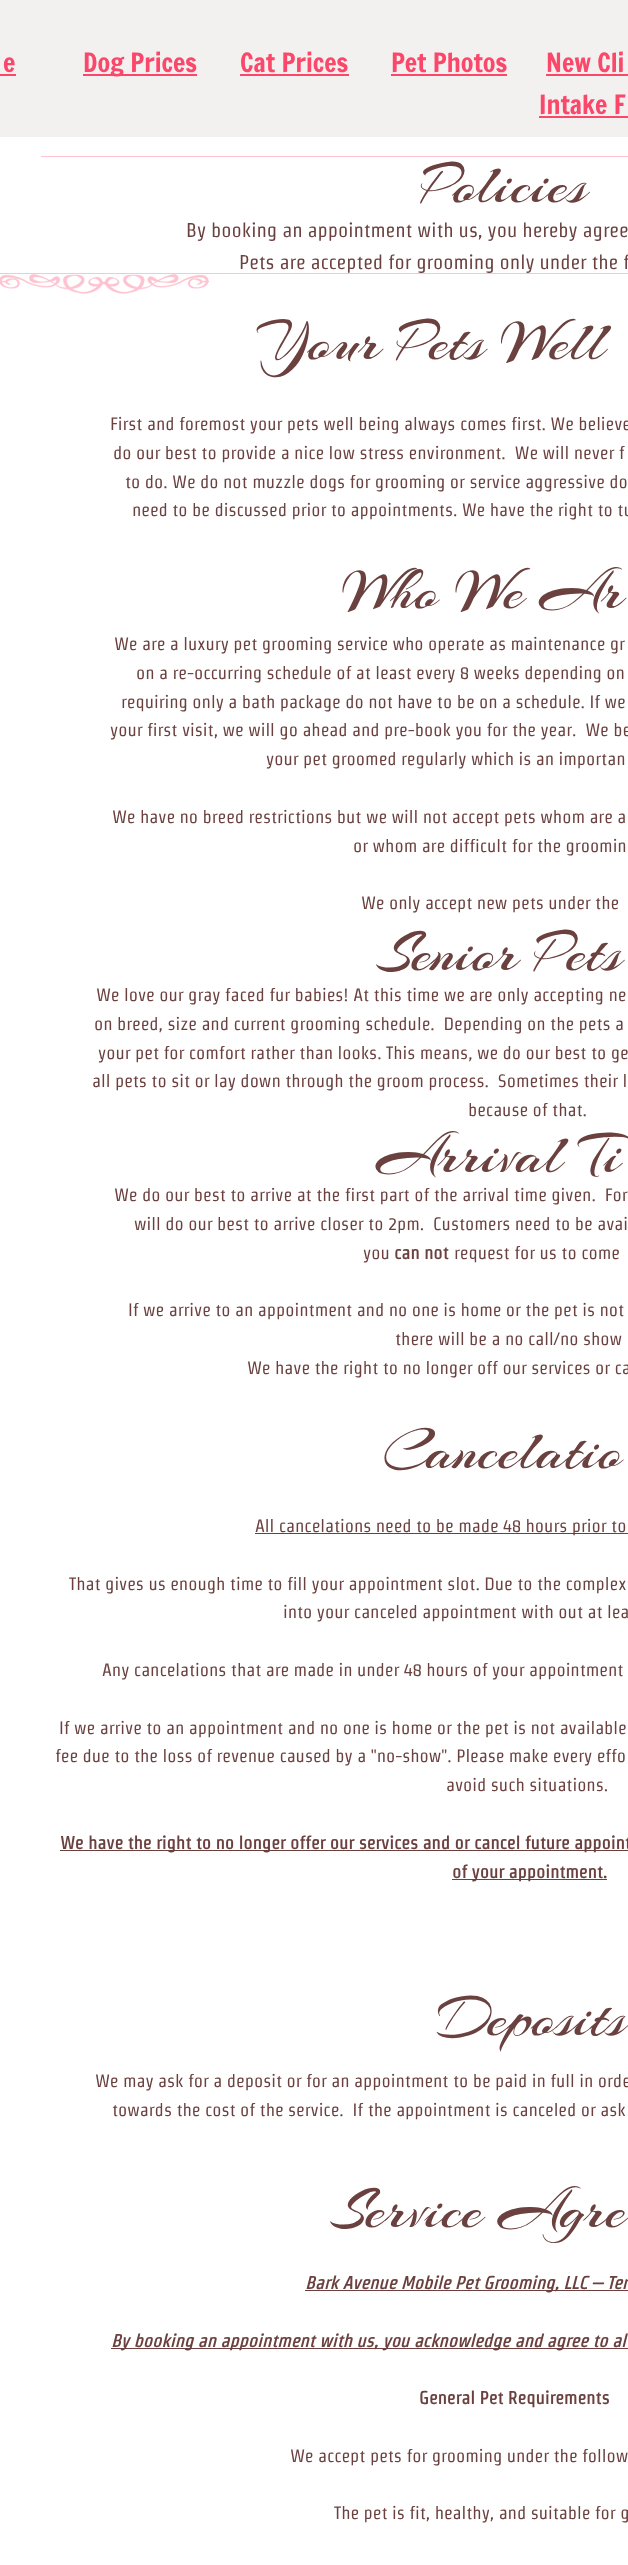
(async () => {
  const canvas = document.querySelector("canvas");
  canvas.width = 628;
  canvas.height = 2565;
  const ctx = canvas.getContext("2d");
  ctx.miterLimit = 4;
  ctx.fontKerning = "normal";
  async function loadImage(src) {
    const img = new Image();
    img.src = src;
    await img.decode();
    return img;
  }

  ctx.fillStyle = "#ffffff";
  ctx.fillRect(0, 0, 628, 2565);
  for (const [x, y, w, h, color] of [
    [0, 0, 628, 137, "#f3f0f0"],
    [0, 74, 16, 2, "#fb476a"],
    [83, 74, 114, 2, "#fb476a"],
    [240, 74, 109, 2, "#fb476a"],
    [391, 74, 116, 2, "#fb476a"],
    [546, 74, 82, 2, "#fb476a"],
    [539, 116, 89, 2, "#fb476a"],
    [41, 156, 587, 1, "#ffc2d0"],
    [0, 273, 628, 1, "#ffc2d0"],
  ]) {
    ctx.fillStyle = color;
    ctx.fillRect(x, y, w, h);
  }
  ctx.drawImage(await loadImage("img/1.png"), 0, 274, 209, 20);
  for (const [x, y, w, h, color] of [
    [255, 1533, 373, 1, "#6a413f"],
    [60, 1850, 568, 1, "#6a413f"],
    [452, 1879, 155, 1, "#6a413f"],
    [305, 2290, 323, 1, "#6a413f"],
    [111, 2348, 517, 1, "#6a413f"],
  ]) {
    ctx.fillStyle = color;
    ctx.fillRect(x, y, w, h);
  }
  ctx.font = "26px Francois One";
  ctx.fillStyle = "#fb476a";
  for (const [text, x, y] of [
    ["e", 3, 72],
    ["Dog Prices", 83, 72],
    ["Cat Prices", 240, 72],
    ["Pet Photos", 391, 72],
    ["New Cli", 546, 72],
    ["Intake F", 539, 114],
  ]) {
    ctx.fillText(text, x, y);
  }
  ctx.font = "60px Arizonia";
  ctx.fillStyle = "#6a413f";
  ctx.fillText("Policies", 421, 202);
  ctx.font = "20px Strait";
  ctx.fillText("By booking an appointment with us, you hereby agree", 186, 237);
  ctx.fillText("Pets are accepted for grooming only under the f", 239, 269);
  ctx.font = "60px Arizonia";
  ctx.fillText("Your Pets Well", 256, 359);
  ctx.font = "18px Strait";
  for (const [text, x, y] of [
    ["First and foremost your pets well being always comes first. We believe", 110, 430],
    ["do our best to provide a nice low stress environment.  We will never f", 113, 459],
    ["to do. We do not muzzle dogs for grooming or service aggressive do", 125, 488],
    ["need to be discussed prior to appointments. We have the right to tu", 132, 516],
  ]) {
    ctx.fillText(text, x, y);
  }
  ctx.font = "60px Arizonia";
  ctx.fillText("Who We Ar", 342, 608);
  ctx.font = "18px Strait";
  for (const [text, x, y] of [
    ["We are a luxury pet grooming service who operate as maintenance gr", 114, 650],
    ["on a re-occurring schedule of at least every 8 weeks depending on", 136, 679],
    ["requiring only a bath package do not have to be on a schedule. If we", 121, 708],
    ["your first visit, we will go ahead and pre-book you for the year.  We be", 110, 736],
    ["your pet groomed regularly which is an importan", 266, 765],
    ["We have no breed restrictions but we will not accept pets whom are a", 112, 823],
    ["or whom are difficult for the groomin", 353, 852],
    ["We only accept new pets under the", 361, 909],
  ]) {
    ctx.fillText(text, x, y);
  }
  ctx.font = "60px Arizonia";
  ctx.fillText("Senior Pets", 377, 970);
  ctx.font = "18px Strait";
  for (const [text, x, y] of [
    ["We love our gray faced fur babies! At this time we are only accepting ne", 96, 1001],
    ["on breed, size and current grooming schedule.  Depending on the pets a", 94, 1030],
    ["your pet for comfort rather than looks. This means, we do our best to ge", 98, 1059],
    ["all pets to sit or lay down through the groom process.  Sometimes their l", 92, 1087],
    ["because of that.", 468, 1116],
  ]) {
    ctx.fillText(text, x, y);
  }
  ctx.font = "60px Arizonia";
  ctx.fillText("Arrival Ti", 377, 1172);
  ctx.font = "18px Strait";
  for (const [text, x, y] of [
    ["We do our best to arrive at the first part of the arrival time given.  For", 114, 1201],
    ["will do our best to arrive closer to 2pm.  Customers need to be avai", 134, 1230],
    ["you", 363, 1259],
  ]) {
    ctx.fillText(text, x, y);
  }
  ctx.font = "bold 18px Strait";
  ctx.fillText("can not", 394, 1259);
  ctx.font = "18px Strait";
  for (const [text, x, y] of [
    ["request for us to come", 454, 1259],
    ["If we arrive to an appointment and no one is home or the pet is not", 128, 1316],
    ["there will be a no call/no show", 395, 1345],
    ["We have the right to no longer off our services or ca", 247, 1374],
  ]) {
    ctx.fillText(text, x, y);
  }
  ctx.font = "60px Arizonia";
  ctx.fillText("Cancelatio", 383, 1468);
  ctx.font = "18px Strait";
  for (const [text, x, y] of [
    ["All cancelations need to be made 48 hours prior to", 255, 1532],
    ["That gives us enough time to fill your appointment slot. Due to the complex", 69, 1590],
    ["into your canceled appointment with out at lea", 283, 1618],
    ["Any cancelations that are made in under 48 hours of your appointment", 102, 1676],
    ["If we arrive to an appointment and no one is home or the pet is not available", 59, 1734],
    ["fee due to the loss of revenue caused by a \"no-show\". Please make every effo", 55, 1762],
    ["avoid such situations.", 446, 1791],
  ]) {
    ctx.fillText(text, x, y);
  }
  ctx.font = "bold 18px Strait";
  ctx.fillText("We have the right to no longer offer our services and or cancel future appoint", 60, 1849);
  ctx.fillText("of your appointment.", 452, 1878);
  ctx.font = "60px Arizonia";
  ctx.fillText("Deposits", 437, 2035);
  ctx.font = "18px Strait";
  ctx.fillText("We may ask for a deposit or for an appointment to be paid in full in orde", 95, 2087);
  ctx.fillText("towards the cost of the service.  If the appointment is canceled or ask", 112, 2116);
  ctx.font = "60px Arizonia";
  ctx.fillText("Service Agre", 331, 2227);
  ctx.font = "italic bold 18px Strait";
  ctx.fillText("Bark Avenue Mobile Pet Grooming, LLC – Ter", 305, 2289);
  ctx.fillText("By booking an appointment with us, you acknowledge and agree to al", 111, 2347);
  ctx.font = "bold 18px Strait";
  ctx.fillText("General Pet Requirements", 419, 2404);
  ctx.font = "18px Strait";
  ctx.fillText("We accept pets for grooming under the follow", 290, 2462);
  ctx.fillText("The pet is fit, healthy, and suitable for g", 334, 2519);
})();
